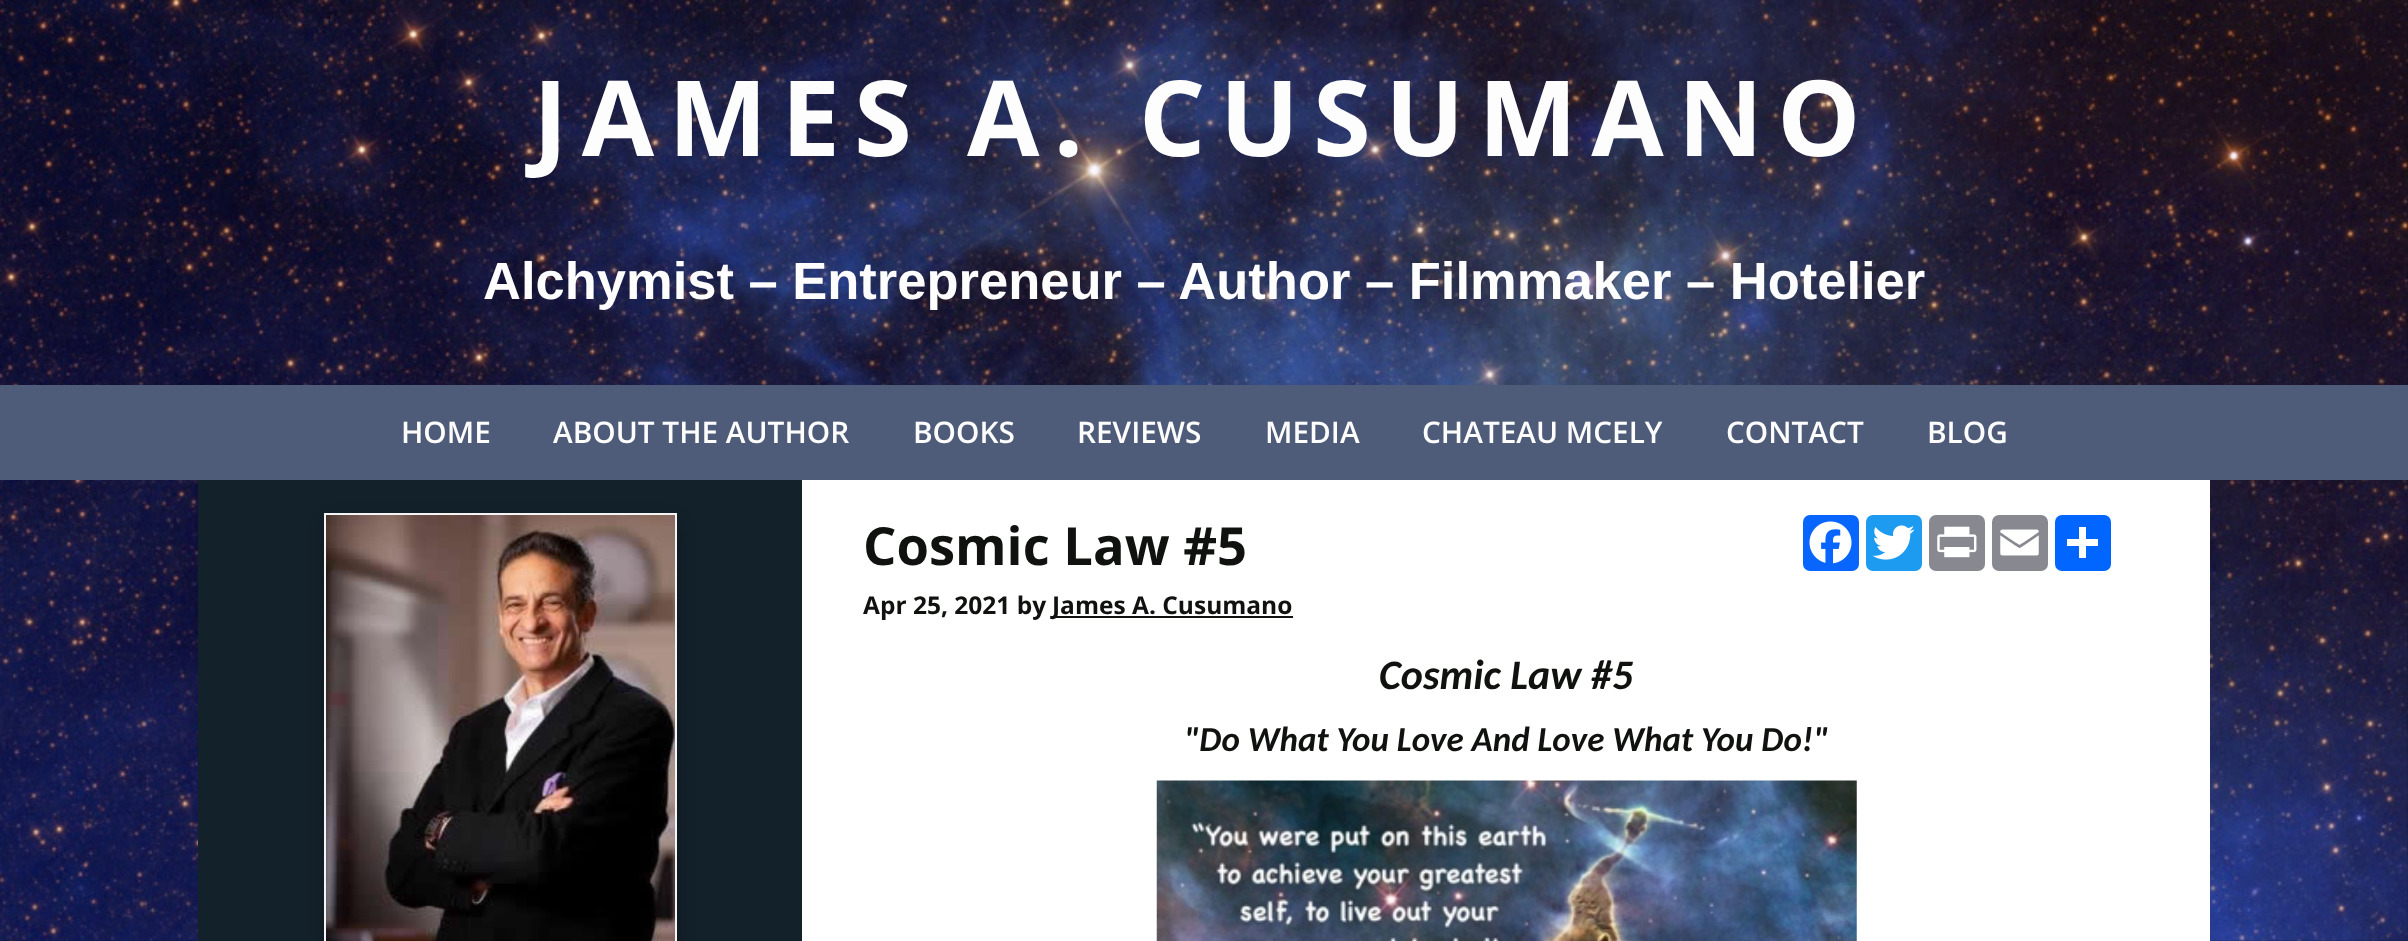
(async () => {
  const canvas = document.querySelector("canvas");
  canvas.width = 2408;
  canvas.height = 941;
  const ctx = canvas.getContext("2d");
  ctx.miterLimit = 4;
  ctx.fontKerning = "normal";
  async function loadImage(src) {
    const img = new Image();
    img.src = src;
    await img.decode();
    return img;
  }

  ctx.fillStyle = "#0a1620";
  ctx.fillRect(0, 0, 2408, 941);
  ctx.drawImage(await loadImage("img/1.png"), 0, 0, 2408, 941);
  for (const [x, y, w, h, color] of [
    [0, 385, 2408, 95, "#4e5c79"],
    [802, 480, 1408, 461, "#ffffff"],
    [198, 480, 604, 461, "#13212b"],
  ]) {
    ctx.fillStyle = color;
    ctx.fillRect(x, y, w, h);
  }
  ctx.fillStyle = "rgba(0, 0, 0, 0.3)";
  ctx.filter = "blur(9px)";
  ctx.beginPath();
  ctx.rect(326, 523, 350, 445);
  ctx.fill();
  ctx.filter = "none";
  ctx.drawImage(await loadImage("img/2.png"), 326, 515, 349, 426);
  ctx.strokeStyle = "#f5f5f5";
  ctx.lineWidth = 2;
  ctx.strokeRect(325, 514, 351, 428);
  ctx.fillStyle = "#10120f";
  ctx.fillRect(1052, 616, 241, 2);
  ctx.drawImage(await loadImage("img/3.png"), 1156, 780, 701, 161);
  ctx.fillStyle = "#0866ff";
  ctx.beginPath();
  ctx.roundRect(1803, 515, 56, 56, 7);
  ctx.fill();
  ctx.drawImage(await loadImage("img/4.png"), 1809, 521, 43, 43);
  ctx.fillStyle = "#1d9bf0";
  ctx.beginPath();
  ctx.roundRect(1866, 515, 56, 56, 7);
  ctx.fill();
  ctx.drawImage(await loadImage("img/5.png"), 1872, 525, 43, 35);
  ctx.fillStyle = "#888990";
  ctx.beginPath();
  ctx.roundRect(1929, 515, 56, 56, 7);
  ctx.fill();
  ctx.drawImage(await loadImage("img/6.png"), 1937, 526, 40, 32);
  ctx.beginPath();
  ctx.roundRect(1992, 515, 56, 56, 7);
  ctx.fill();
  ctx.drawImage(await loadImage("img/7.png"), 2000, 529, 39, 27);
  ctx.fillStyle = "#0166ff";
  ctx.beginPath();
  ctx.roundRect(2055, 515, 56, 56, 7);
  ctx.fill();
  ctx.fillStyle = "#ffffff";
  ctx.fillRect(2079, 527, 7, 31);
  ctx.fillRect(2067, 539, 31, 7);
  ctx.letterSpacing = "14px";
  ctx.font = "bold 105px Open Sans";
  ctx.fillStyle = "#fdfdfd";
  ctx.fillText("JAMES A. CUSUMANO", 533, 156);
  ctx.letterSpacing = "0px";
  ctx.font = "bold 52.5px Liberation Sans";
  ctx.fillText("Alchymist – Entrepreneur – Author – Filmmaker – Hotelier", 483, 299);
  ctx.font = "600 29.75px Open Sans";
  for (const [text, x, y] of [
    ["HOME", 401, 443],
    ["ABOUT THE AUTHOR", 553, 443],
    ["BOOKS", 913, 443],
    ["REVIEWS", 1077, 443],
    ["MEDIA", 1265, 443],
    ["CHATEAU MCELY", 1422, 443],
    ["CONTACT", 1726, 443],
    ["BLOG", 1927, 443],
  ]) {
    ctx.fillText(text, x, y);
  }
  ctx.font = "bold 52.5px Open Sans";
  ctx.fillStyle = "#10120f";
  ctx.fillText("Cosmic Law #5", 863, 565);
  ctx.font = "bold 24.5px Open Sans";
  ctx.fillText("Apr 25, 2021 by", 863, 614);
  ctx.fillText("James A. Cusumano", 1052, 614);
  ctx.font = "italic bold 42px Carlito";
  ctx.fillText("Cosmic Law #5", 1379, 689);
  ctx.font = "italic bold 35px Carlito";
  ctx.fillText("\"Do What You Love And Love What You Do!\"", 1184, 751);
})();
